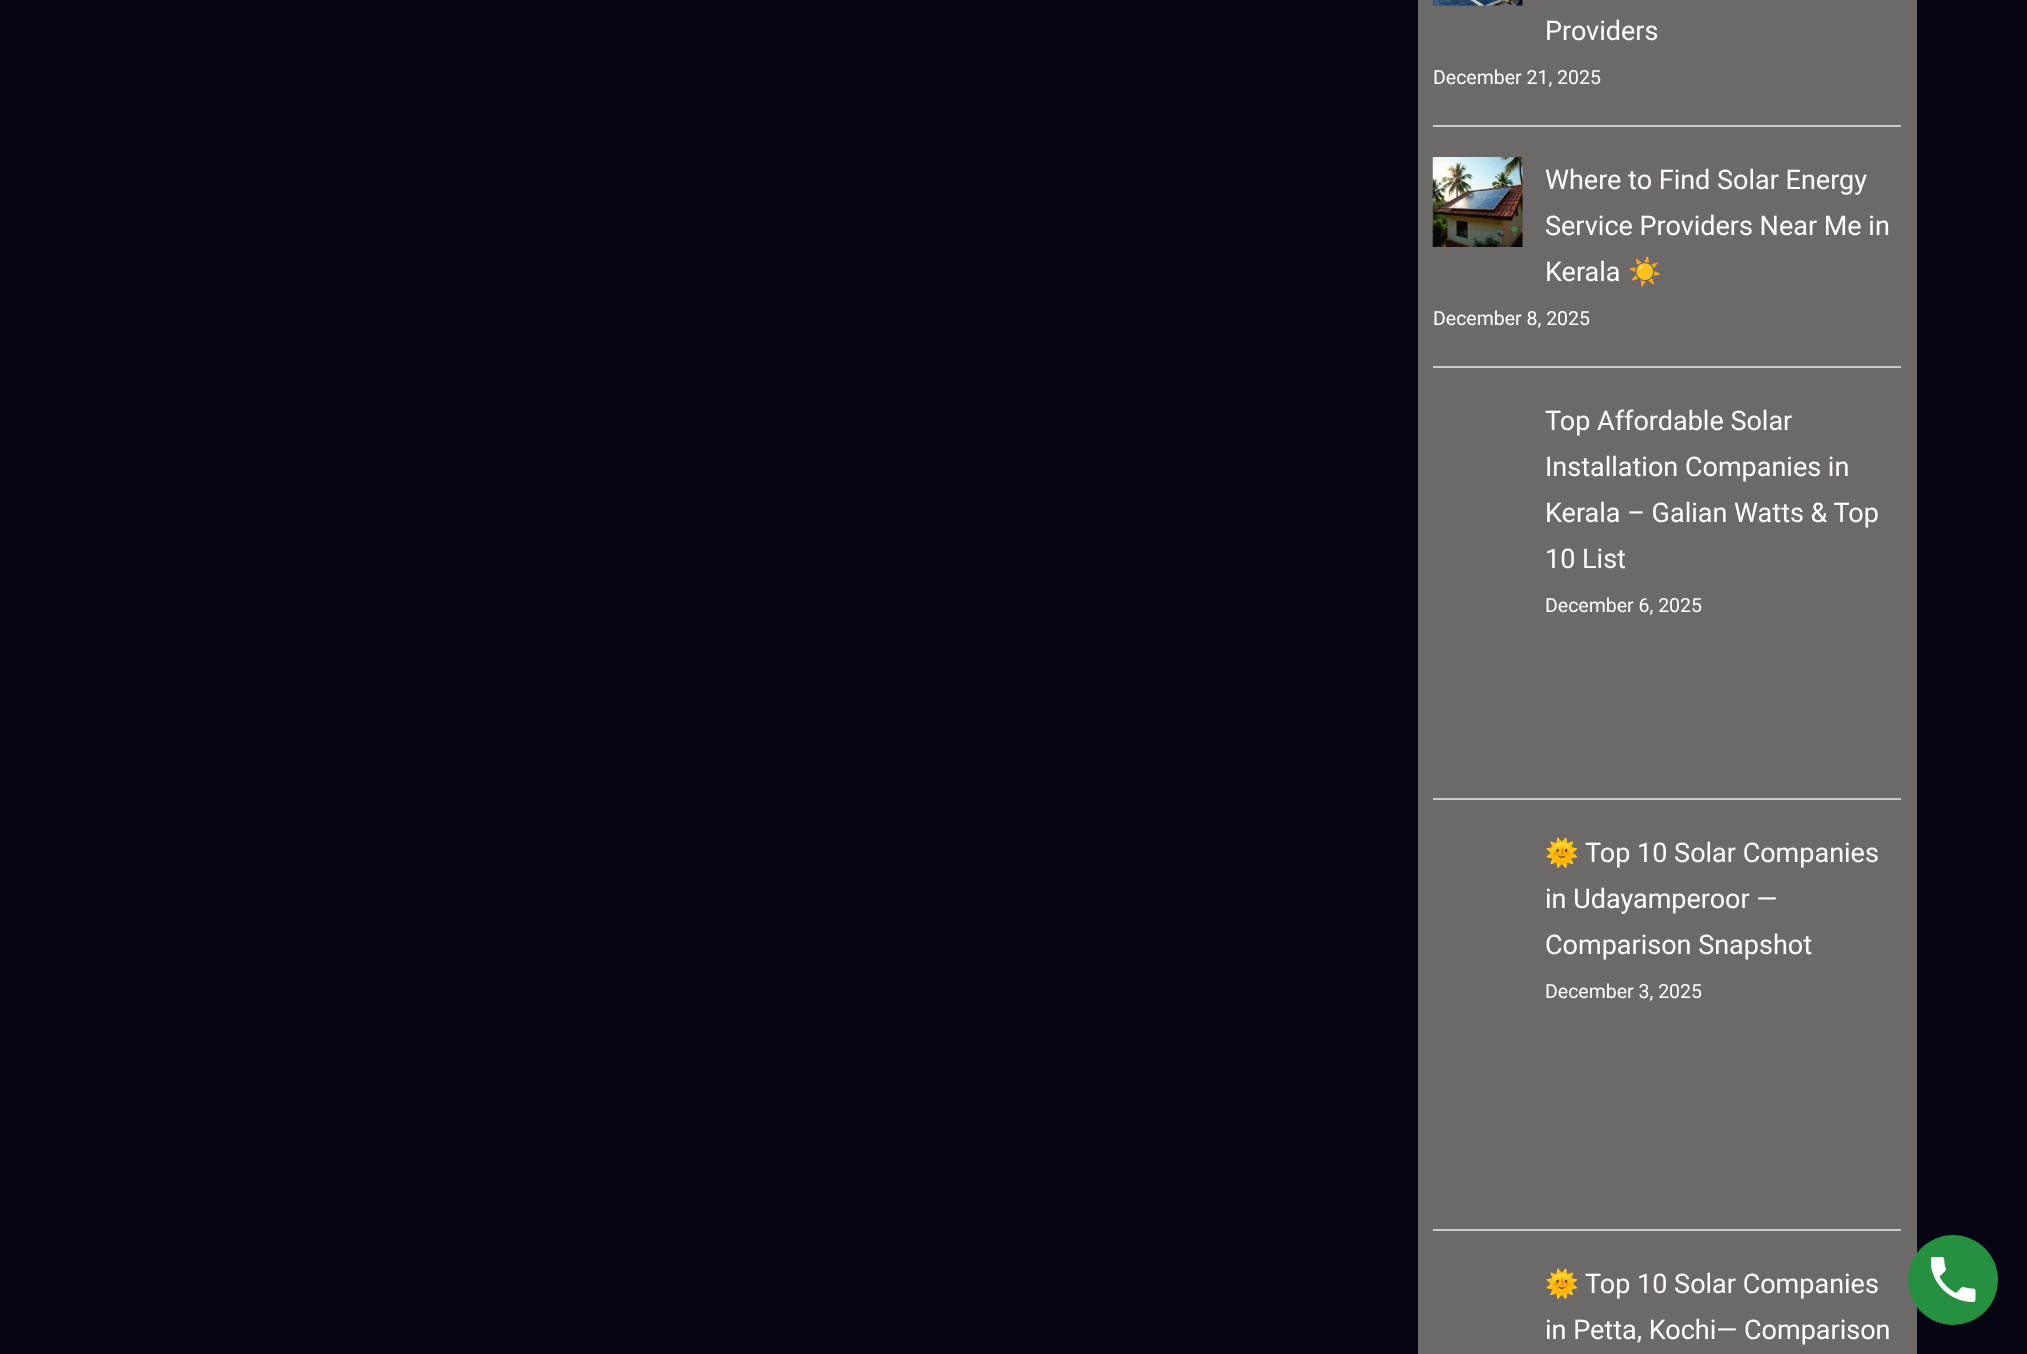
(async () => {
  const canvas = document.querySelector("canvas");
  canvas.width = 2027;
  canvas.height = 1354;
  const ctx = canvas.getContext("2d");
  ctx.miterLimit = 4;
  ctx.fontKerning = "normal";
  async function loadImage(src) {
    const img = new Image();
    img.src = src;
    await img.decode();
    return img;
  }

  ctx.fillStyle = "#070513";
  ctx.fillRect(0, 0, 2027, 1354);
  ctx.fillStyle = "#6d6969";
  ctx.fillRect(1418, 0, 499, 1354);
  ctx.fillStyle = "#cacaca";
  ctx.fillRect(1433, 125, 468, 2);
  ctx.drawImage(await loadImage("img/1.png"), 1432, 0, 91, 6);
  ctx.fillRect(1433, 366, 468, 2);
  ctx.drawImage(await loadImage("img/2.png"), 1432, 157, 91, 90);
  ctx.fillRect(1433, 798, 468, 2);
  ctx.fillRect(1433, 1229, 468, 2);
  ctx.fillStyle = "#269041";
  ctx.beginPath();
  ctx.arc(1953, 1280, 45, 0, Math.PI * 2);
  ctx.fill();
  ctx.drawImage(await loadImage("img/3.png"), 1931, 1257, 45, 45);
  ctx.font = "27px Roboto";
  ctx.fillStyle = "#ffffff";
  ctx.fillText("Providers", 1545, 40);
  ctx.font = "19.5px Roboto";
  ctx.fillText("December 21, 2025", 1433, 84);
  ctx.font = "27px Roboto";
  for (const [text, x, y] of [
    ["Where to Find Solar Energy", 1545, 189],
    ["Service Providers Near Me in", 1545, 235],
    ["Kerala", 1545, 281],
  ]) {
    ctx.fillText(text, x, y);
  }
  ctx.font = "27px Noto Color Emoji";
  ctx.fillText("☀️", 1628, 281);
  ctx.font = "19.5px Roboto";
  ctx.fillText("December 8, 2025", 1433, 325);
  ctx.font = "27px Roboto";
  for (const [text, x, y] of [
    ["Top Affordable Solar", 1545, 430],
    ["Installation Companies in", 1545, 476],
    ["Kerala – Galian Watts & Top", 1545, 522],
    ["10 List", 1545, 568],
  ]) {
    ctx.fillText(text, x, y);
  }
  ctx.font = "19.5px Roboto";
  ctx.fillText("December 6, 2025", 1545, 612);
  ctx.font = "27px Noto Color Emoji";
  ctx.fillText("🌞", 1545, 862);
  ctx.font = "27px Roboto";
  for (const [text, x, y] of [
    ["Top 10 Solar Companies", 1585, 862],
    ["in Udayamperoor —", 1545, 908],
    ["Comparison Snapshot", 1545, 954],
  ]) {
    ctx.fillText(text, x, y);
  }
  ctx.font = "19.5px Roboto";
  ctx.fillText("December 3, 2025", 1545, 998);
  ctx.font = "27px Noto Color Emoji";
  ctx.fillText("🌞", 1545, 1293);
  ctx.font = "27px Roboto";
  ctx.fillText("Top 10 Solar Companies", 1585, 1293);
  ctx.fillText("in Petta, Kochi— Comparison", 1545, 1339);
})();
